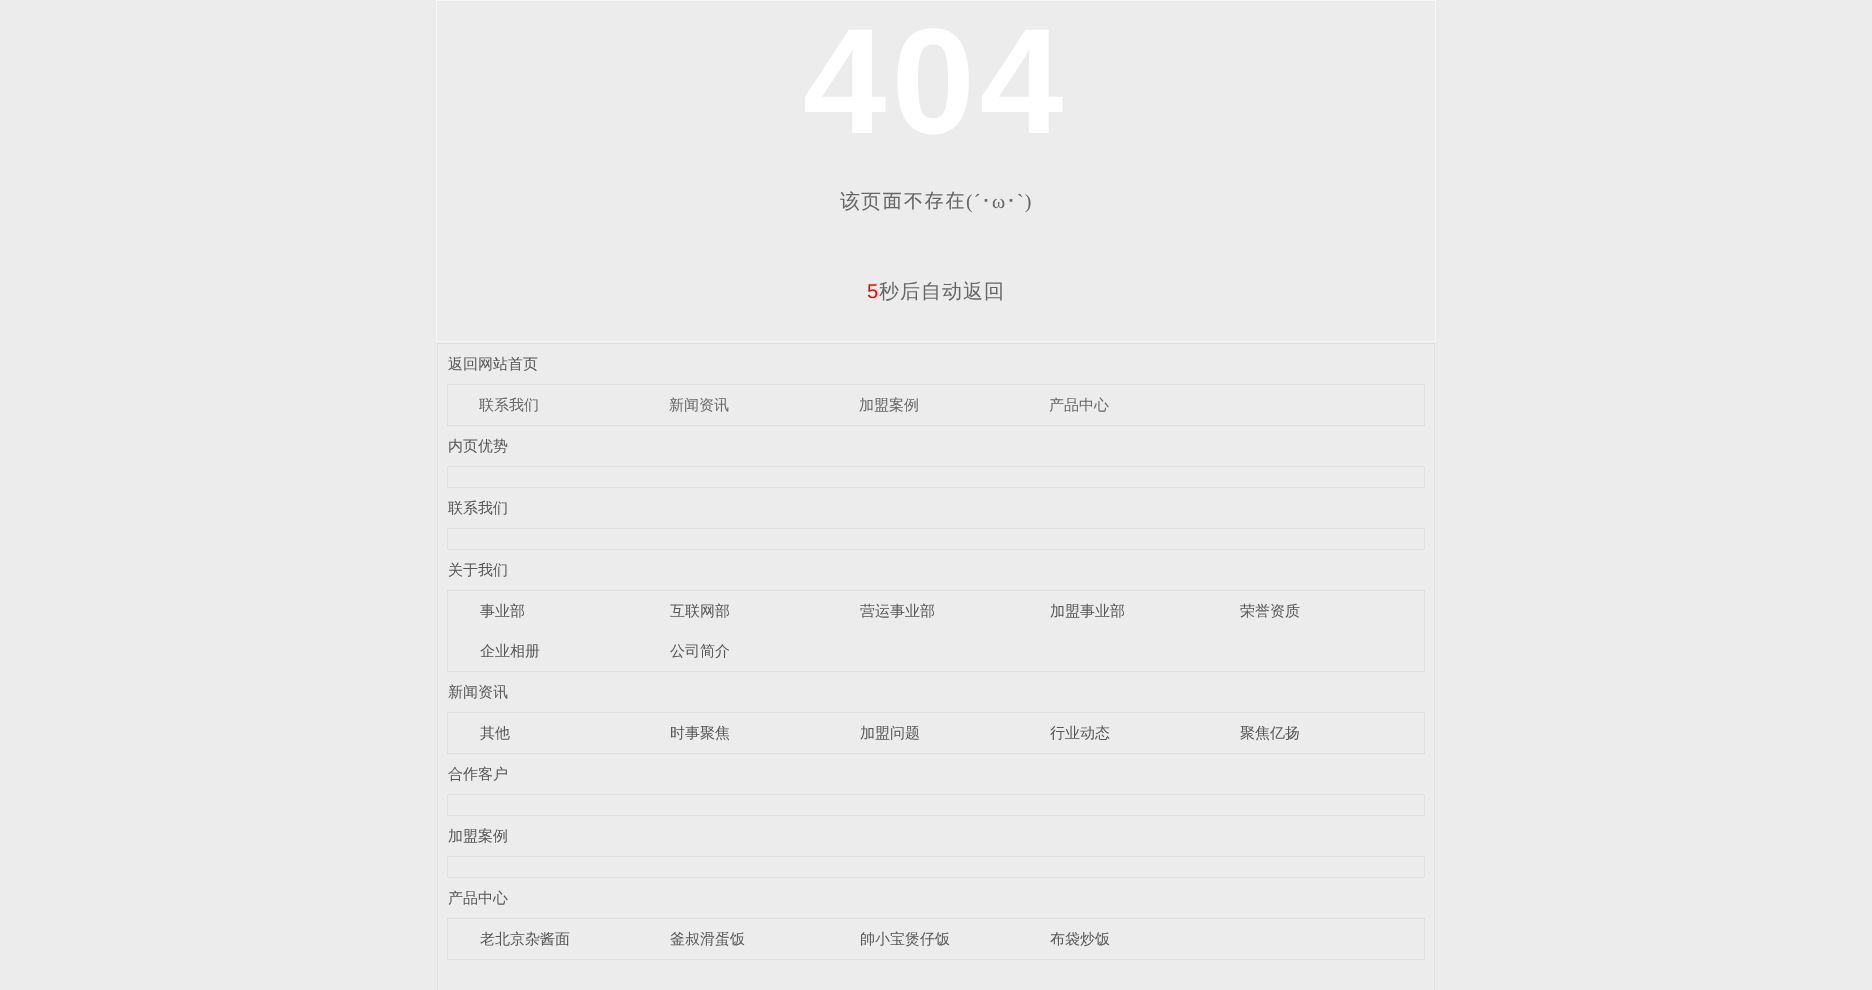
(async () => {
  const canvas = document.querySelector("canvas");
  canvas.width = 1872;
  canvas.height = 990;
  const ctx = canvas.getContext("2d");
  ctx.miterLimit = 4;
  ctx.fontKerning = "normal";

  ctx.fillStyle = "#ececec";
  ctx.fillRect(0, 0, 1872, 990);
  ctx.strokeStyle = "#f7f7f7";
  ctx.strokeRect(436.5, 0.5, 999, 341);
  ctx.strokeStyle = "#e0e0e0";
  ctx.strokeRect(437.5, 343.5, 997, 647);
  ctx.strokeRect(447.5, 384.5, 977, 41);
  ctx.strokeRect(447.5, 466.5, 977, 21);
  ctx.strokeRect(447.5, 528.5, 977, 21);
  ctx.strokeRect(447.5, 590.5, 977, 81);
  ctx.strokeRect(447.5, 712.5, 977, 41);
  ctx.strokeRect(447.5, 794.5, 977, 21);
  ctx.strokeRect(447.5, 856.5, 977, 21);
  ctx.strokeRect(447.5, 918.5, 977, 41);
  ctx.letterSpacing = "5px";
  ctx.font = "bold 150px Liberation Sans";
  ctx.fillStyle = "#ffffff";
  ctx.fillText("404", 803, 133);
  ctx.letterSpacing = "1px";
  ctx.font = "500 20px WenQuanYi Zen Hei";
  ctx.fillStyle = "#666666";
  ctx.fillText("该页", 840, 208);
  ctx.font = "20px IPAGothic";
  ctx.fillText("面不存在", 882, 208);
  ctx.font = "20px Liberation Serif";
  ctx.fillText("(´", 966, 208);
  ctx.font = "20px IPAGothic";
  ctx.fillText("･", 981, 208);
  ctx.font = "20px Liberation Serif";
  ctx.fillText("ω", 992, 208);
  ctx.font = "20px IPAGothic";
  ctx.fillText("･", 1006, 208);
  ctx.font = "20px Liberation Serif";
  ctx.fillText("`)", 1017, 208);
  ctx.font = "20px Liberation Sans";
  ctx.fillStyle = "#ff0000";
  ctx.fillText("5", 867, 298);
  ctx.font = "500 20px WenQuanYi Zen Hei";
  ctx.fillStyle = "#666666";
  ctx.fillText("秒后自动返回", 879, 298);
  ctx.letterSpacing = "0px";
  ctx.font = "500 15px WenQuanYi Zen Hei";
  ctx.fillStyle = "#565656";
  ctx.fillText("返回网站首页", 448, 369);
  ctx.fillStyle = "#666666";
  for (const [text, x, y] of [
    ["联系我们", 479, 410],
    ["新闻资讯", 669, 410],
    ["加盟案例", 859, 410],
    ["产品中心", 1049, 410],
  ]) {
    ctx.fillText(text, x, y);
  }
  ctx.fillStyle = "#565656";
  for (const [text, x, y] of [
    ["内页优势", 448, 451],
    ["联系我们", 448, 513],
    ["关于我们", 448, 575],
    ["事业部", 480, 616],
    ["互联网部", 670, 616],
    ["营运事业部", 860, 616],
    ["加盟事业部", 1050, 616],
    ["荣誉资质", 1240, 616],
    ["企业相册", 480, 656],
    ["公司简介", 670, 656],
    ["新闻资讯", 448, 697],
    ["其他", 480, 738],
    ["时事聚焦", 670, 738],
    ["加盟问题", 860, 738],
    ["行业动态", 1050, 738],
    ["聚焦亿扬", 1240, 738],
    ["合作客户", 448, 779],
    ["加盟案例", 448, 841],
    ["产品中心", 448, 903],
    ["老北京杂酱面", 480, 944],
    ["釜叔滑蛋饭", 670, 944],
    ["帥小宝煲仔饭", 860, 944],
    ["布袋炒饭", 1050, 944],
  ]) {
    ctx.fillText(text, x, y);
  }
})();
